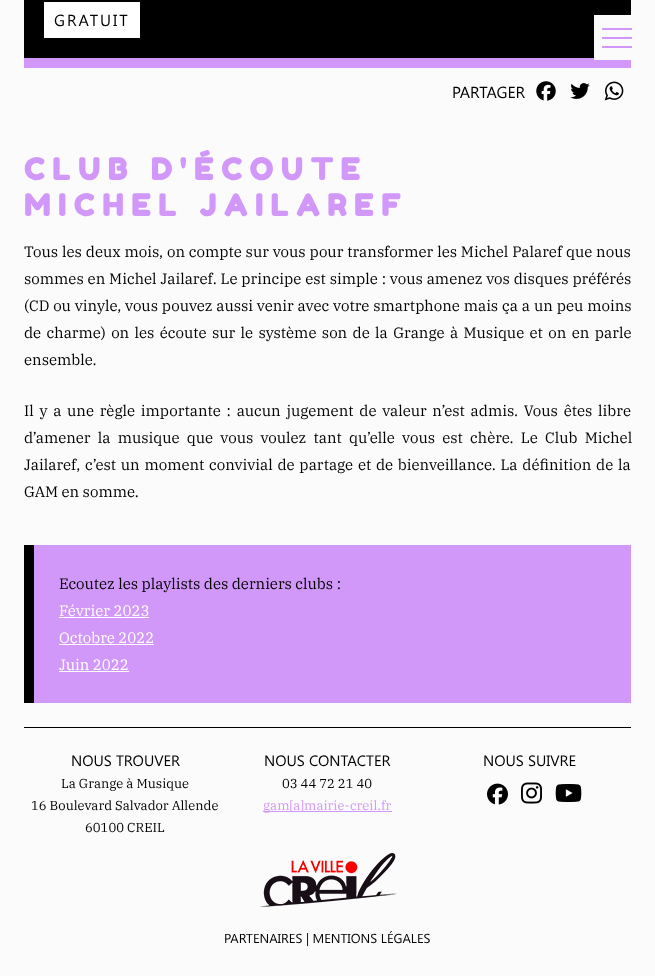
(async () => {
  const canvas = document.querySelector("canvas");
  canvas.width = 655;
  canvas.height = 976;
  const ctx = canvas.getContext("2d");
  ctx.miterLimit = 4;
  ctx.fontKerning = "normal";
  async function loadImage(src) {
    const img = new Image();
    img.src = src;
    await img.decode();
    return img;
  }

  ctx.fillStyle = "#fbfbfb";
  ctx.fillRect(0, 0, 655, 976);
  for (const [x, y, w, h, color] of [
    [24, 58, 607, 10, "#d198fa"],
    [24, 0, 607, 58, "#000000"],
    [44, 2, 96, 36, "#ffffff"],
  ]) {
    ctx.fillStyle = color;
    ctx.fillRect(x, y, w, h);
  }
  ctx.drawImage(await loadImage("img/1.png"), 536, 81, 20, 20);
  ctx.drawImage(await loadImage("img/2.png"), 570, 83, 20, 16);
  ctx.drawImage(await loadImage("img/3.png"), 604, 81, 20, 20);
  for (const [x, y, w, h, color] of [
    [34, 545, 597, 158, "#d198fa"],
    [24, 545, 10, 158, "#000000"],
    [59, 617, 90, 1, "#ffffff"],
    [59, 644, 95, 1, "#ffffff"],
    [59, 671, 70, 1, "#ffffff"],
    [24, 727, 607, 1, "#000000"],
    [263, 811, 129, 1, "#d198fa"],
  ]) {
    ctx.fillStyle = color;
    ctx.fillRect(x, y, w, h);
  }
  ctx.drawImage(await loadImage("img/4.png"), 487, 783, 21, 22);
  ctx.drawImage(await loadImage("img/5.png"), 521, 782, 21, 22);
  ctx.drawImage(await loadImage("img/6.png"), 555, 784, 27, 18);
  ctx.drawImage(await loadImage("img/7.png"), 259, 853, 138, 54);
  for (const [x, y, w, h, color] of [
    [594, 15, 37, 45, "#fbfbfb"],
    [602, 28, 30, 2, "#d198fa"],
    [602, 37, 30, 2, "#d198fa"],
    [602, 46, 30, 2, "#d198fa"],
  ]) {
    ctx.fillStyle = color;
    ctx.fillRect(x, y, w, h);
  }
  ctx.letterSpacing = "2px";
  ctx.font = "16px Segoe UI";
  ctx.fillStyle = "#000000";
  ctx.fillText("GRATUIT", 54, 26);
  ctx.letterSpacing = "0px";
  ctx.fillText("PARTAGER", 452, 98);
  ctx.letterSpacing = "8px";
  ctx.font = "bold 30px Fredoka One";
  ctx.fillStyle = "#d198fa";
  ctx.fillText("CLUB D'ÉCOUTE", 24, 180);
  ctx.fillText("MICHEL JAILAREF", 24, 216);
  ctx.letterSpacing = "0px";
  ctx.wordSpacing = "0.4px";
  ctx.font = "15px IBM Plex Serif";
  ctx.fillStyle = "#000000";
  for (const [text, x, y] of [
    ["Tous les deux mois, on compte sur vous pour transformer les Michel Palaref que nous", 24, 257],
    ["sommes en Michel Jailaref. Le principe est simple : vous amenez vos disques préférés", 24, 284],
    ["(CD ou vinyle, vous pouvez aussi venir avec votre smartphone mais ça a un peu moins", 24, 311],
  ]) {
    ctx.fillText(text, x, y);
  }
  ctx.wordSpacing = "1.9px";
  ctx.fillText("de charme) on les écoute sur le système son de la Grange à Musique et on en parle", 24, 338);
  ctx.wordSpacing = "0px";
  ctx.fillText("ensemble.", 24, 365);
  ctx.wordSpacing = "2.25px";
  ctx.fillText("Il y a une règle importante : aucun jugement de valeur n’est admis. Vous êtes libre", 24, 416);
  ctx.wordSpacing = "3.75px";
  ctx.fillText("d’amener la musique que vous voulez tant qu’elle vous est chère. Le Club Michel", 24, 443);
  ctx.wordSpacing = "1.25px";
  ctx.fillText("Jailaref, c’est un moment convivial de partage et de bienveillance. La définition de la", 24, 470);
  ctx.wordSpacing = "0px";
  ctx.fillText("GAM en somme.", 24, 497);
  ctx.fillText("Ecoutez les playlists des derniers clubs :", 59, 589);
  ctx.fillStyle = "#ffffff";
  for (const [text, x, y] of [
    ["Février 2023", 59, 616],
    ["Octobre 2022", 59, 643],
    ["Juin 2022", 59, 670],
  ]) {
    ctx.fillText(text, x, y);
  }
  ctx.font = "15px Segoe UI";
  ctx.fillStyle = "#000000";
  ctx.fillText("NOUS TROUVER", 71, 766);
  ctx.font = "13px IBM Plex Serif";
  for (const [text, x, y] of [
    ["La Grange à Musique", 61, 788],
    ["16 Boulevard Salvador Allende", 31, 810],
    ["60100 CREIL", 85, 832],
  ]) {
    ctx.fillText(text, x, y);
  }
  ctx.font = "15px Segoe UI";
  ctx.fillText("NOUS CONTACTER", 264, 766);
  ctx.font = "13px IBM Plex Serif";
  ctx.fillText("03 44 72 21 40", 282, 788);
  ctx.fillStyle = "#d198fa";
  ctx.fillText("gam[a]mairie-creil.fr", 263, 810);
  ctx.font = "15px Segoe UI";
  ctx.fillStyle = "#000000";
  ctx.fillText("NOUS SUIVRE", 483, 766);
  ctx.font = "13px Segoe UI";
  ctx.fillText("PARTENAIRES | MENTIONS LÉGALES", 224, 943);
})();
